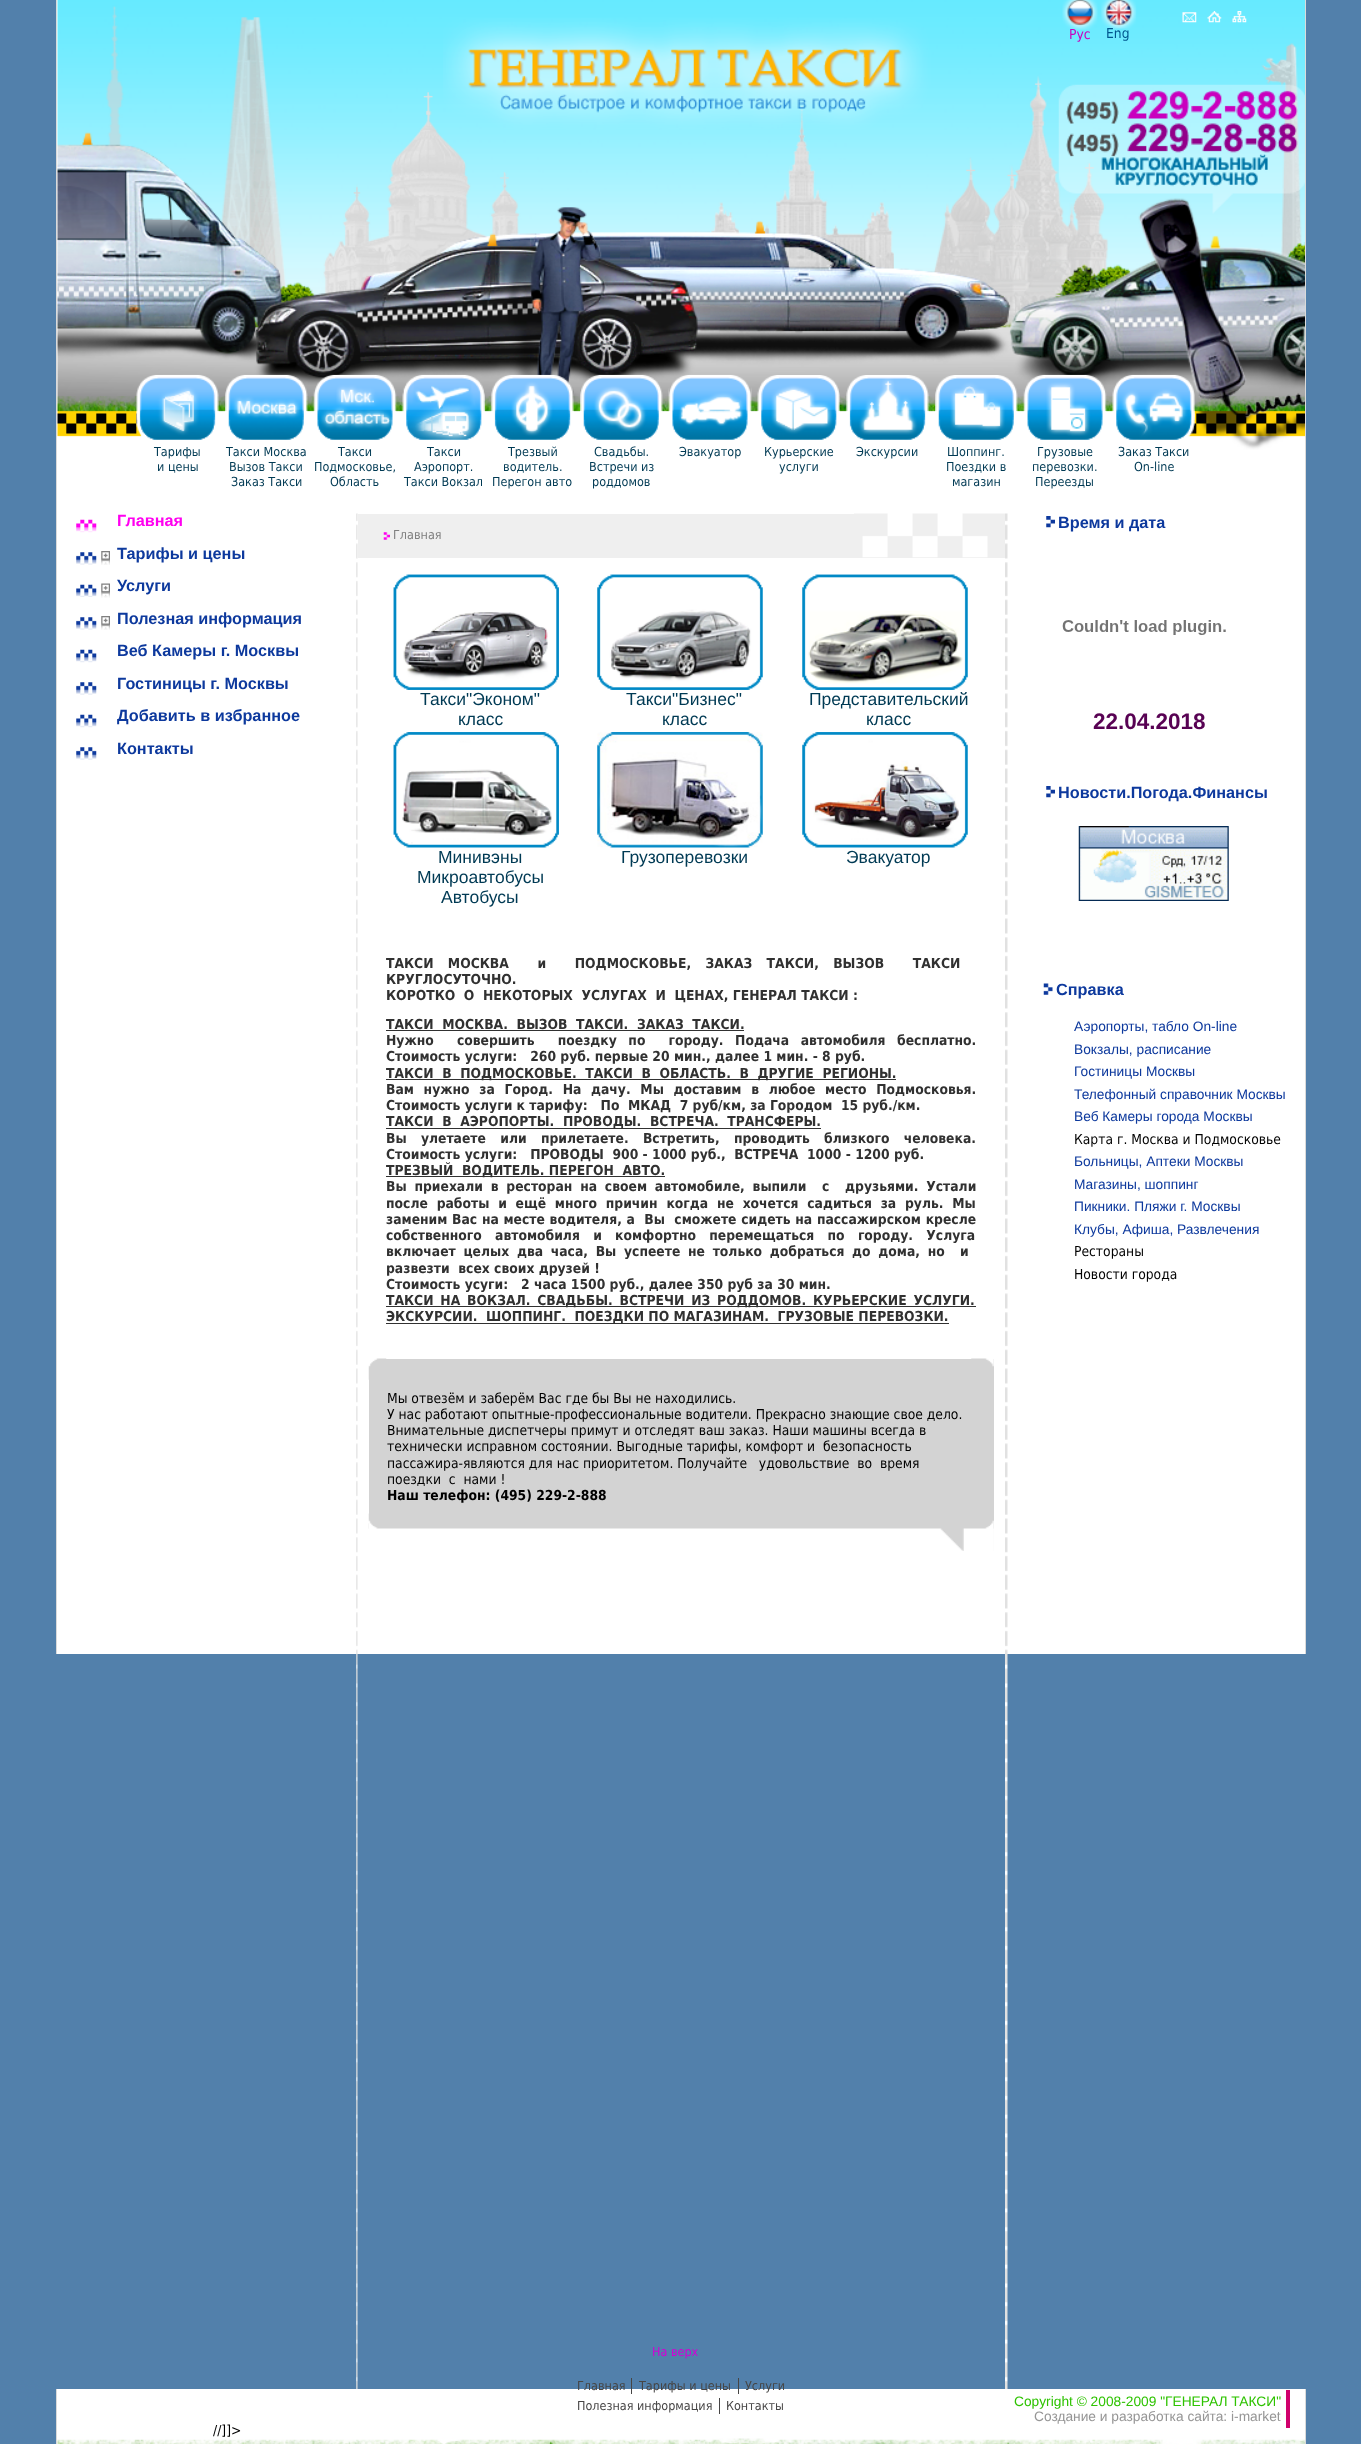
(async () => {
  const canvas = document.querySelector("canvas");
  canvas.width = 1361;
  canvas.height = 2444;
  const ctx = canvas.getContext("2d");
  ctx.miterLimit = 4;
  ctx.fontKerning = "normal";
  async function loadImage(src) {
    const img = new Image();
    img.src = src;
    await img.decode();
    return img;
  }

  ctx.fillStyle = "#5280ab";
  ctx.fillRect(0, 0, 1361, 2444);
  for (const [x, y, w, h, color] of [
    [57, 0, 1248, 1654, "#ffffff"],
    [1305, 0, 1, 1654, "#dadada"],
    [56, 0, 1, 1654, "#dadada"],
  ]) {
    ctx.fillStyle = color;
    ctx.fillRect(x, y, w, h);
  }
  ctx.drawImage(await loadImage("img/1.png"), 57, 0, 1248, 450);
  ctx.drawImage(await loadImage("img/2.png"), 443, 18, 528, 142);
  ctx.drawImage(await loadImage("img/3.png"), 1062, 0, 36, 30);
  ctx.drawImage(await loadImage("img/4.png"), 1101, 0, 36, 29);
  ctx.drawImage(await loadImage("img/5.png"), 1182, 12, 15, 11);
  ctx.drawImage(await loadImage("img/6.png"), 1207, 11, 15, 12);
  ctx.drawImage(await loadImage("img/7.png"), 1232, 11, 15, 12);
  ctx.drawImage(await loadImage("img/8.png"), 136, 374, 83, 66);
  ctx.drawImage(await loadImage("img/9.png"), 225, 374, 83, 66);
  ctx.drawImage(await loadImage("img/10.png"), 313, 374, 84, 66);
  ctx.drawImage(await loadImage("img/11.png"), 402, 374, 83, 66);
  ctx.drawImage(await loadImage("img/12.png"), 491, 374, 83, 66);
  ctx.drawImage(await loadImage("img/13.png"), 580, 374, 83, 66);
  ctx.drawImage(await loadImage("img/14.png"), 668, 374, 84, 66);
  ctx.drawImage(await loadImage("img/15.png"), 757, 375, 83, 65);
  ctx.drawImage(await loadImage("img/16.png"), 846, 375, 83, 65);
  ctx.drawImage(await loadImage("img/17.png"), 935, 375, 83, 65);
  ctx.drawImage(await loadImage("img/18.png"), 1023, 374, 84, 66);
  ctx.drawImage(await loadImage("img/19.png"), 1112, 374, 83, 66);
  ctx.drawImage(await loadImage("img/20.png"), 356, 513, 2, 1876);
  ctx.drawImage(await loadImage("img/21.png"), 76, 519, 21, 14);
  ctx.drawImage(await loadImage("img/22.png"), 76, 552, 21, 13);
  ctx.drawImage(await loadImage("img/23.png"), 101, 551, 9, 14);
  ctx.drawImage(await loadImage("img/24.png"), 76, 584, 21, 13);
  ctx.drawImage(await loadImage("img/25.png"), 101, 583, 9, 15);
  ctx.drawImage(await loadImage("img/22.png"), 76, 617, 21, 13);
  ctx.drawImage(await loadImage("img/23.png"), 101, 616, 9, 14);
  ctx.drawImage(await loadImage("img/26.png"), 76, 649, 21, 14);
  ctx.drawImage(await loadImage("img/27.png"), 76, 682, 21, 13);
  ctx.drawImage(await loadImage("img/26.png"), 76, 714, 21, 14);
  ctx.drawImage(await loadImage("img/27.png"), 76, 747, 21, 13);
  ctx.fillStyle = "#efefef";
  ctx.fillRect(358, 514, 647, 44);
  ctx.drawImage(await loadImage("img/28.png"), 854, 513, 151, 45);
  ctx.drawImage(await loadImage("img/29.png"), 383, 532, 7, 8);
  ctx.drawImage(await loadImage("img/30.png"), 393, 574, 166, 116);
  ctx.drawImage(await loadImage("img/31.png"), 393, 574, 166, 116);
  ctx.drawImage(await loadImage("img/32.png"), 597, 574, 166, 116);
  ctx.drawImage(await loadImage("img/33.png"), 597, 574, 166, 116);
  ctx.drawImage(await loadImage("img/34.png"), 802, 574, 166, 116);
  ctx.drawImage(await loadImage("img/35.png"), 802, 574, 166, 116);
  ctx.drawImage(await loadImage("img/36.png"), 393, 732, 166, 116);
  ctx.drawImage(await loadImage("img/37.png"), 393, 732, 166, 116);
  ctx.drawImage(await loadImage("img/38.png"), 597, 732, 166, 116);
  ctx.drawImage(await loadImage("img/39.png"), 597, 732, 166, 116);
  ctx.drawImage(await loadImage("img/40.png"), 802, 732, 166, 116);
  ctx.drawImage(await loadImage("img/41.png"), 802, 732, 166, 116);
  for (const [x, y, w, h, color] of [
    [386, 1030, 358, 1, "#313131"],
    [386, 1079, 510, 1, "#313131"],
    [386, 1128, 435, 1, "#313131"],
    [386, 1176, 279, 1, "#313131"],
    [386, 1306, 590, 1, "#313131"],
    [386, 1323, 563, 1, "#313131"],
    [369, 1359, 625, 192, "#d3d3d3"],
  ]) {
    ctx.fillStyle = color;
    ctx.fillRect(x, y, w, h);
  }
  ctx.drawImage(await loadImage("img/42.png"), 368, 1523, 626, 28);
  ctx.drawImage(await loadImage("img/43.png"), 368, 1358, 19, 22);
  ctx.drawImage(await loadImage("img/44.png"), 971, 1358, 23, 9);
  ctx.drawImage(await loadImage("img/45.png"), 368, 1513, 10, 16);
  ctx.drawImage(await loadImage("img/46.png"), 940, 1520, 54, 31);
  ctx.drawImage(await loadImage("img/47.png"), 1005, 513, 3, 1876);
  ctx.drawImage(await loadImage("img/48.png"), 1046, 516, 9, 12);
  ctx.drawImage(await loadImage("img/49.png"), 1062, 620, 164, 15);
  ctx.drawImage(await loadImage("img/48.png"), 1046, 786, 9, 12);
  ctx.drawImage(await loadImage("img/50.png"), 1078, 826, 151, 75);
  ctx.drawImage(await loadImage("img/51.png"), 1043, 983, 10, 12);
  ctx.fillStyle = "#ffffff";
  ctx.fillRect(57, 2389, 1248, 55);
  ctx.drawImage(await loadImage("img/52.png"), 57, 2438, 1248, 6);
  for (const [x, y, w, h, color] of [
    [1305, 2389, 1, 55, "#dadada"],
    [56, 2389, 1, 55, "#dadada"],
    [631, 2378, 1, 16, "#464545"],
    [738, 2378, 1, 16, "#464545"],
    [719, 2398, 1, 16, "#464545"],
    [1286, 2390, 4, 38, "#d0006c"],
  ]) {
    ctx.fillStyle = color;
    ctx.fillRect(x, y, w, h);
  }
  ctx.font = "13.75px DejaVu Sans";
  ctx.fillStyle = "#c900be";
  ctx.fillText("Рус", 1069, 39);
  ctx.fillStyle = "#00578f";
  ctx.fillText("Eng", 1106, 38);
  ctx.font = "12.5px DejaVu Sans";
  ctx.fillStyle = "#003a54";
  for (const [text, x, y] of [
    ["Тарифы", 154, 456],
    ["и цены", 157, 471],
    ["Такси Москва", 226, 456],
    ["Вызов Такси", 229, 471],
    ["Заказ Такси", 231, 486],
    ["Такси", 338, 456],
    ["Подмосковье,", 314, 471],
    ["Область", 330, 486],
    ["Такси", 427, 456],
    ["Аэропорт.", 414, 471],
    ["Такси Вокзал", 404, 486],
    ["Трезвый", 508, 456],
    ["водитель.", 503, 471],
    ["Перегон авто", 492, 486],
    ["Свадьбы.", 594, 456],
    ["Встречи из", 589, 471],
    ["роддомов", 592, 486],
    ["Эвакуатор", 679, 456],
    ["Курьерские", 764, 456],
    ["услуги", 779, 471],
    ["Экскурсии", 856, 456],
    ["Шоппинг.", 947, 456],
    ["Поездки в", 946, 471],
    ["магазин", 952, 486],
    ["Грузовые", 1037, 456],
    ["перевозки.", 1032, 471],
    ["Переезды", 1035, 486],
    ["Заказ Такси", 1118, 456],
    ["On-line", 1134, 471],
  ]) {
    ctx.fillText(text, x, y);
  }
  ctx.font = "bold 16.25px Liberation Sans";
  ctx.fillStyle = "#ff00f0";
  ctx.fillText("Главная", 117, 526);
  ctx.fillStyle = "#0d399d";
  for (const [text, x, y] of [
    ["Тарифы и цены", 117, 559],
    ["Услуги", 117, 591],
    ["Полезная информация", 117, 624],
    ["Веб Камеры г. Москвы", 117, 656],
    ["Гостиницы г. Москвы", 117, 689],
    ["Добавить в избранное", 117, 721],
    ["Контакты", 117, 754],
  ]) {
    ctx.fillText(text, x, y);
  }
  ctx.font = "12.5px DejaVu Sans";
  ctx.fillStyle = "#7f7f7f";
  ctx.fillText("Главная", 393, 539);
  ctx.font = "17.5px Liberation Sans";
  ctx.fillStyle = "#003a54";
  for (const [text, x, y] of [
    ["Такси\"Эконом\"", 420, 705],
    ["класс", 458, 725],
    ["Такси\"Бизнес\"", 626, 705],
    ["класс", 662, 725],
    ["Представительский", 809, 705],
    ["класс", 866, 725],
    ["Минивэны", 438, 863],
    ["Микроавтобусы", 417, 883],
    ["Автобусы", 441, 903],
    ["Грузоперевозки", 621, 863],
    ["Эвакуатор", 846, 863],
  ]) {
    ctx.fillText(text, x, y);
  }
  ctx.wordSpacing = "10px";
  ctx.font = "bold 13.75px DejaVu Sans";
  ctx.fillStyle = "#313131";
  ctx.fillText("ТАКСИ МОСКВА  и  ПОДМОСКОВЬЕ, ЗАКАЗ ТАКСИ, ВЫЗОВ  ТАКСИ", 386, 968);
  ctx.wordSpacing = "0px";
  for (const [text, x, y] of [
    ["КРУГЛОСУТОЧНО.", 386, 984],
    ["КОРОТКО  О  НЕКОТОРЫХ  УСЛУГАХ  И  ЦЕНАХ, ГЕНЕРАЛ ТАКСИ :", 386, 1000],
    ["ТАКСИ  МОСКВА.  ВЫЗОВ  ТАКСИ.  ЗАКАЗ  ТАКСИ.", 386, 1029],
  ]) {
    ctx.fillText(text, x, y);
  }
  ctx.wordSpacing = "7.25px";
  ctx.fillText("Нужно  совершить  поездку по  городу. Подача автомобиля бесплатно.", 386, 1045);
  ctx.wordSpacing = "0px";
  ctx.fillText("Стоимость услуги:   260 руб. первые 20 мин., далее 1 мин. - 8 руб.", 386, 1061);
  ctx.fillText("ТАКСИ  В  ПОДМОСКОВЬЕ.  ТАКСИ  В  ОБЛАСТЬ.  В  ДРУГИЕ  РЕГИОНЫ.", 386, 1078);
  ctx.wordSpacing = "5.4px";
  ctx.fillText("Вам нужно за Город. На дачу. Мы доставим в любое место Подмосковья.", 386, 1094);
  ctx.wordSpacing = "0px";
  ctx.fillText("Стоимость услуги к тарифу:   По  МКАД  7 руб/км, за Городом  15 руб./км.", 386, 1110);
  ctx.fillText("ТАКСИ  В  АЭРОПОРТЫ.  ПРОВОДЫ.  ВСТРЕЧА.  ТРАНСФЕРЫ.", 386, 1126);
  ctx.wordSpacing = "10px";
  ctx.fillText("Вы улетаете или прилетаете. Встретить, проводить близкого человека.", 386, 1143);
  ctx.wordSpacing = "0px";
  ctx.fillText("Стоимость услуги:   ПРОВОДЫ  900 - 1000 руб.,  ВСТРЕЧА  1000 - 1200 руб.", 386, 1159);
  ctx.fillText("ТРЕЗВЫЙ  ВОДИТЕЛЬ. ПЕРЕГОН  АВТО.", 386, 1175);
  ctx.wordSpacing = "3.5px";
  ctx.fillText("Вы приехали в ресторан на своем автомобиле, выпили  с  друзьями. Устали", 386, 1191);
  ctx.wordSpacing = "4.5px";
  ctx.fillText("после работы и ещё много причин когда не хочется садиться за руль. Мы", 386, 1208);
  ctx.wordSpacing = "0.4px";
  ctx.fillText("заменим Вас на месте водителя, а  Вы  сможете сидеть на пассажирском кресле", 386, 1224);
  ctx.wordSpacing = "9px";
  ctx.fillText("собственного автомобиля и комфортно перемещаться по городу. Услуга", 386, 1240);
  ctx.wordSpacing = "3.4px";
  ctx.fillText("включает целых два часа, Вы успеете не только добраться до дома, но  и", 386, 1256);
  ctx.wordSpacing = "0px";
  ctx.fillText("развезти  всех своих друзей !", 386, 1273);
  ctx.fillText("Стоимость усуги:   2 часа 1500 руб., далее 350 руб за 30 мин.", 386, 1289);
  ctx.wordSpacing = "2.5px";
  ctx.fillText("ТАКСИ НА ВОКЗАЛ. СВАДЬБЫ. ВСТРЕЧИ ИЗ РОДДОМОВ. КУРЬЕРСКИЕ УСЛУГИ.", 386, 1305);
  ctx.wordSpacing = "0px";
  ctx.fillText("ЭКСКУРСИИ.  ШОППИНГ.  ПОЕЗДКИ ПО МАГАЗИНАМ.  ГРУЗОВЫЕ ПЕРЕВОЗКИ.", 386, 1321);
  ctx.font = "13.75px DejaVu Sans";
  ctx.fillStyle = "#000000";
  for (const [text, x, y] of [
    ["Мы отвезём и заберём Вас где бы Вы не находились.", 387, 1403],
    ["У нас работают опытные-профессиональные водители. Прекрасно знающие свое дело.", 387, 1419],
    ["Внимательные диспетчеры примут и отследят ваш заказ. Наши машины всегда в", 387, 1435],
    ["технически исправном состоянии. Выгодные тарифы, комфорт и  безопасность", 387, 1451],
    ["пассажира-являются для нас приоритетом. Получайте   удовольствие  во  время", 387, 1468],
    ["поездки  с  нами !", 387, 1484],
  ]) {
    ctx.fillText(text, x, y);
  }
  ctx.font = "bold 13.75px DejaVu Sans";
  ctx.fillText("Наш телефон: (495) 229-2-888", 387, 1500);
  ctx.font = "bold 16.25px Liberation Sans";
  ctx.fillStyle = "#0d399d";
  ctx.fillText("Время и дата", 1058, 528);
  ctx.font = "bold 22.5px Liberation Sans";
  ctx.fillStyle = "#580253";
  ctx.fillText("22.04.2018", 1093, 729);
  ctx.font = "bold 16.25px Liberation Sans";
  ctx.fillStyle = "#0d399d";
  ctx.fillText("Новости.Погода.Финансы", 1058, 798);
  ctx.fillText("Справка", 1056, 995);
  ctx.font = "13.75px Liberation Sans";
  for (const [text, x, y] of [
    ["Аэропорты, табло On-line", 1074, 1031],
    ["Вокзалы, расписание", 1074, 1054],
    ["Гостиницы Москвы", 1074, 1076],
    ["Телефонный справочник Москвы", 1074, 1099],
    ["Веб Камеры города Москвы", 1074, 1121],
  ]) {
    ctx.fillText(text, x, y);
  }
  ctx.font = "13.75px DejaVu Sans";
  ctx.fillStyle = "#000000";
  ctx.fillText("Карта г. Москва и Подмосковье", 1074, 1144);
  ctx.font = "13.75px Liberation Sans";
  ctx.fillStyle = "#0d399d";
  for (const [text, x, y] of [
    ["Больницы, Аптеки Москвы", 1074, 1166],
    ["Магазины, шоппинг", 1074, 1189],
    ["Пикники. Пляжи г. Москвы", 1074, 1211],
    ["Клубы, Афиша, Развлечения", 1074, 1234],
  ]) {
    ctx.fillText(text, x, y);
  }
  ctx.font = "13.75px DejaVu Sans";
  ctx.fillStyle = "#000000";
  ctx.fillText("Рестораны", 1074, 1256);
  ctx.fillText("Новости города", 1074, 1279);
  ctx.font = "12.5px DejaVu Sans";
  ctx.fillStyle = "#d200d5";
  ctx.fillText("На верх", 652, 2356);
  ctx.fillStyle = "#464545";
  for (const [text, x, y] of [
    ["Главная", 577, 2390],
    ["Тарифы и цены", 639, 2390],
    ["Услуги", 745, 2390],
    ["Полезная информация", 577, 2410],
    ["Контакты", 726, 2410],
  ]) {
    ctx.fillText(text, x, y);
  }
  ctx.font = "13.75px Liberation Sans";
  ctx.fillStyle = "#2ec300";
  ctx.fillText("Copyright © 2008-2009 \"ГЕНЕРАЛ ТАКСИ\"", 1014, 2406);
  ctx.fillStyle = "#969696";
  ctx.fillText("Создание и разработка сайта: i-market", 1034, 2421);
  ctx.font = "13.75px DejaVu Sans";
  ctx.fillStyle = "#000000";
  ctx.fillText("//]]>", 213, 2435);
})();
